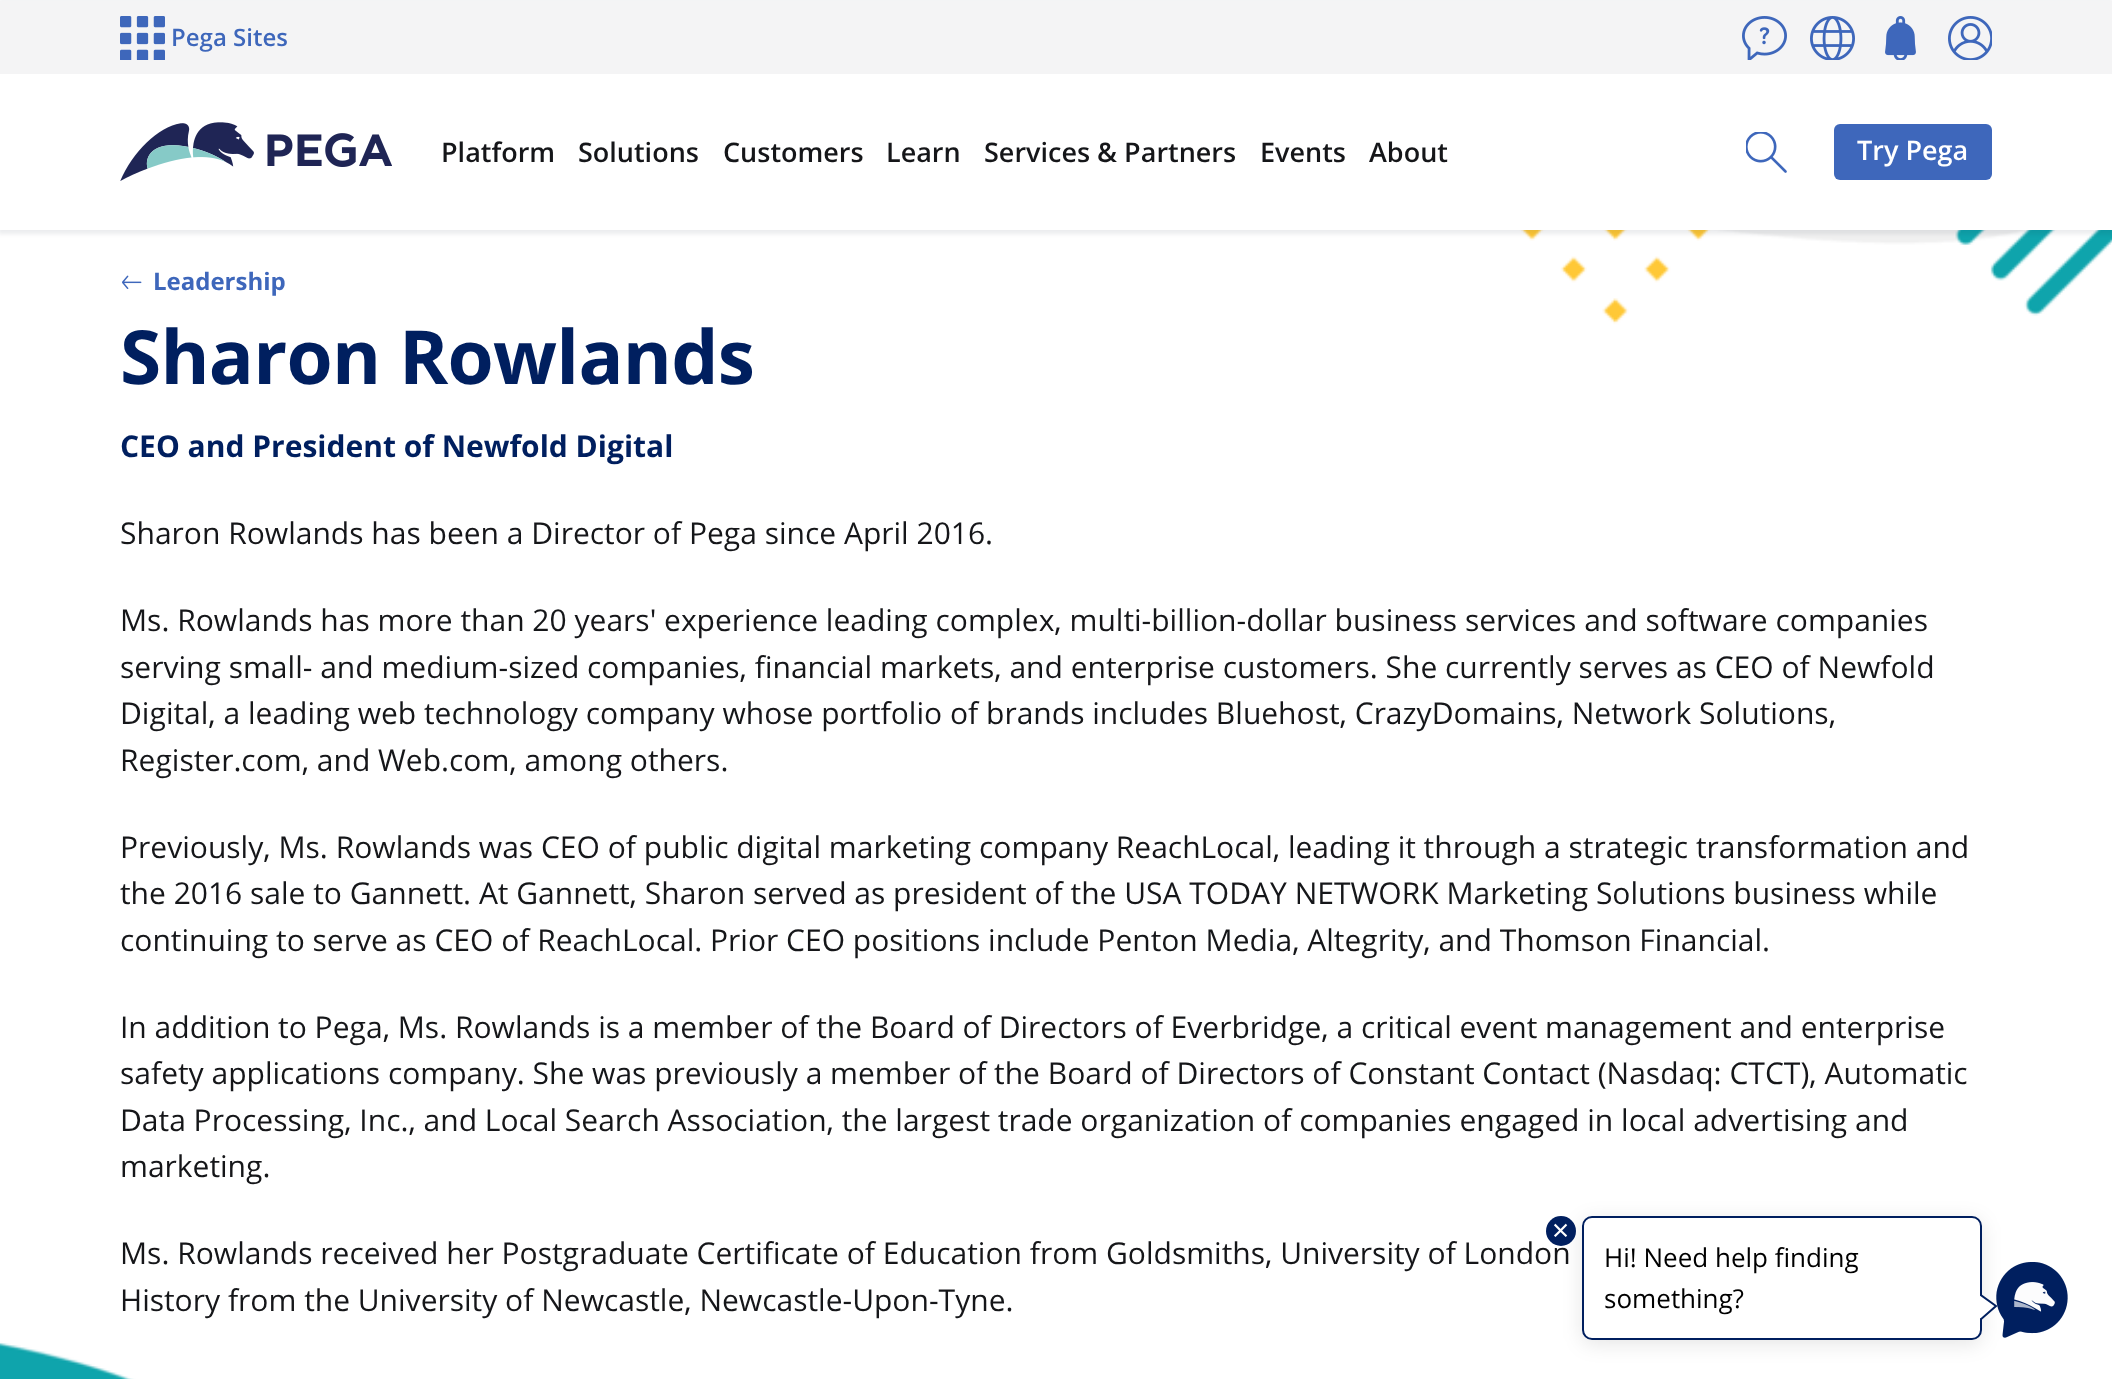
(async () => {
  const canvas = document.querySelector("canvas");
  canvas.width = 2112;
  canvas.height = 1379;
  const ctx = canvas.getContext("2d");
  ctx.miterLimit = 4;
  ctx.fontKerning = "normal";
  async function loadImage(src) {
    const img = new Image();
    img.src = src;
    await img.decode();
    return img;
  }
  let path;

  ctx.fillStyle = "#ffffff";
  ctx.fillRect(0, 0, 2112, 1379);
  ctx.drawImage(await loadImage("img/8.png"), 0, 230, 2112, 1149);
  ctx.fillStyle = "rgba(6, 10, 36, 0.08)";
  ctx.filter = "blur(2px)";
  ctx.beginPath();
  ctx.rect(-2, 0, 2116, 234);
  ctx.fill();
  ctx.filter = "none";
  ctx.fillStyle = "#ffffff";
  ctx.fillRect(0, 74, 2112, 156);
  ctx.fillStyle = "#f4f4f5";
  ctx.fillRect(0, 1, 2112, 73);
  ctx.drawImage(await loadImage("img/1.png"), 120, 16, 45, 44);
  ctx.drawImage(await loadImage("img/2.png"), 1742, 16, 45, 44);
  ctx.drawImage(await loadImage("img/3.png"), 1810, 16, 45, 44);
  ctx.drawImage(await loadImage("img/4.png"), 1885, 16, 31, 44);
  ctx.drawImage(await loadImage("img/5.png"), 1948, 16, 44, 44);
  ctx.drawImage(await loadImage("img/6.png"), 1746, 132, 41, 41);
  ctx.fillStyle = "#3e67bb";
  ctx.beginPath();
  ctx.roundRect(1834, 124, 158, 56, 6);
  ctx.fill();
  ctx.drawImage(await loadImage("img/7.png"), 120, 122, 272, 59);
  ctx.drawImage(await loadImage("img/9.png"), 122, 275, 20, 14);
  ctx.fillStyle = "rgba(0, 0, 0, 0.1)";
  ctx.filter = "blur(10px)";
  ctx.beginPath();
  ctx.roundRect(1582, 1220, 400, 124, 10);
  ctx.fill();
  ctx.filter = "none";
  ctx.fillStyle = "#ffffff";
  ctx.beginPath();
  ctx.roundRect(1583, 1217, 398, 122, 9);
  ctx.fill();
  ctx.strokeStyle = "#001f5f";
  ctx.lineWidth = 2;
  ctx.stroke();
  ctx.save();
  ctx.beginPath();
  ctx.rect(1980, 1280, 20, 40);
  ctx.clip();
  path = new Path2D("M1960 1280L1996 1306L1980 1320Z");
  ctx.fill(path);
  ctx.stroke(path);
  ctx.restore();
  ctx.drawImage(await loadImage("img/10.png"), 1996, 1262, 72, 76);
  ctx.font = "600 24px Open Sans";
  ctx.fillStyle = "#3e67bb";
  ctx.fillText("Pega Sites", 171, 46);
  ctx.font = "600 27px Open Sans";
  ctx.fillStyle = "#151619";
  for (const [text, x, y] of [
    ["Platform", 441, 162],
    ["Solutions", 578, 162],
    ["Customers", 723, 162],
    ["Learn", 886, 162],
    ["Services & Partners", 984, 162],
    ["Events", 1260, 162],
    ["About", 1369, 162],
  ]) {
    ctx.fillText(text, x, y);
  }
  ctx.fillStyle = "#ffffff";
  ctx.fillText("Try Pega", 1857, 160);
  ctx.font = "bold 24px Open Sans";
  ctx.fillStyle = "#3e67bb";
  ctx.fillText("Leadership", 153, 290);
  ctx.letterSpacing = "-0.75px";
  ctx.font = "bold 74.75px Open Sans";
  ctx.fillStyle = "#001f5f";
  ctx.fillText("Sharon Rowlands", 120, 384);
  ctx.letterSpacing = "0px";
  ctx.font = "bold 30px Open Sans";
  ctx.fillText("CEO and President of Newfold Digital", 120, 457);
  ctx.font = "30px Open Sans";
  ctx.fillStyle = "#151619";
  for (const [text, x, y] of [
    ["Sharon Rowlands has been a Director of Pega since April 2016.", 120, 544],
    ["Ms. Rowlands has more than 20 years' experience leading complex, multi-billion-dollar business services and software companies", 120, 631],
    ["serving small- and medium-sized companies, financial markets, and enterprise customers. She currently serves as CEO of Newfold", 120, 678],
    ["Digital, a leading web technology company whose portfolio of brands includes Bluehost, CrazyDomains, Network Solutions,", 120, 724],
    ["Register.com, and Web.com, among others.", 120, 771],
    ["Previously, Ms. Rowlands was CEO of public digital marketing company ReachLocal, leading it through a strategic transformation and", 120, 858],
    ["the 2016 sale to Gannett. At Gannett, Sharon served as president of the USA TODAY NETWORK Marketing Solutions business while", 120, 904],
    ["continuing to serve as CEO of ReachLocal. Prior CEO positions include Penton Media, Altegrity, and Thomson Financial.", 120, 951],
    ["In addition to Pega, Ms. Rowlands is a member of the Board of Directors of Everbridge, a critical event management and enterprise", 120, 1038],
    ["safety applications company. She was previously a member of the Board of Directors of Constant Contact (Nasdaq: CTCT), Automatic", 120, 1084],
    ["Data Processing, Inc., and Local Search Association, the largest trade organization of companies engaged in local advertising and", 120, 1131],
    ["marketing.", 120, 1177],
    ["Ms. Rowlands received her Postgraduate Certificate of Education from Goldsmiths, University of London", 120, 1264],
    ["History from the University of Newcastle, Newcastle-Upon-Tyne.", 120, 1311],
  ]) {
    ctx.fillText(text, x, y);
  }
  ctx.fillStyle = "#001f5f";
  ctx.beginPath();
  ctx.arc(1561, 1231, 15, 0, Math.PI * 2);
  ctx.fill();
  ctx.fillStyle = "#ffffff";
  ctx.fillText("×", 1552, 1241);
  ctx.font = "26px Open Sans";
  ctx.fillStyle = "#000000";
  ctx.fillText("Hi! Need help finding", 1604, 1267);
  ctx.fillText("something?", 1604, 1308);
})();
